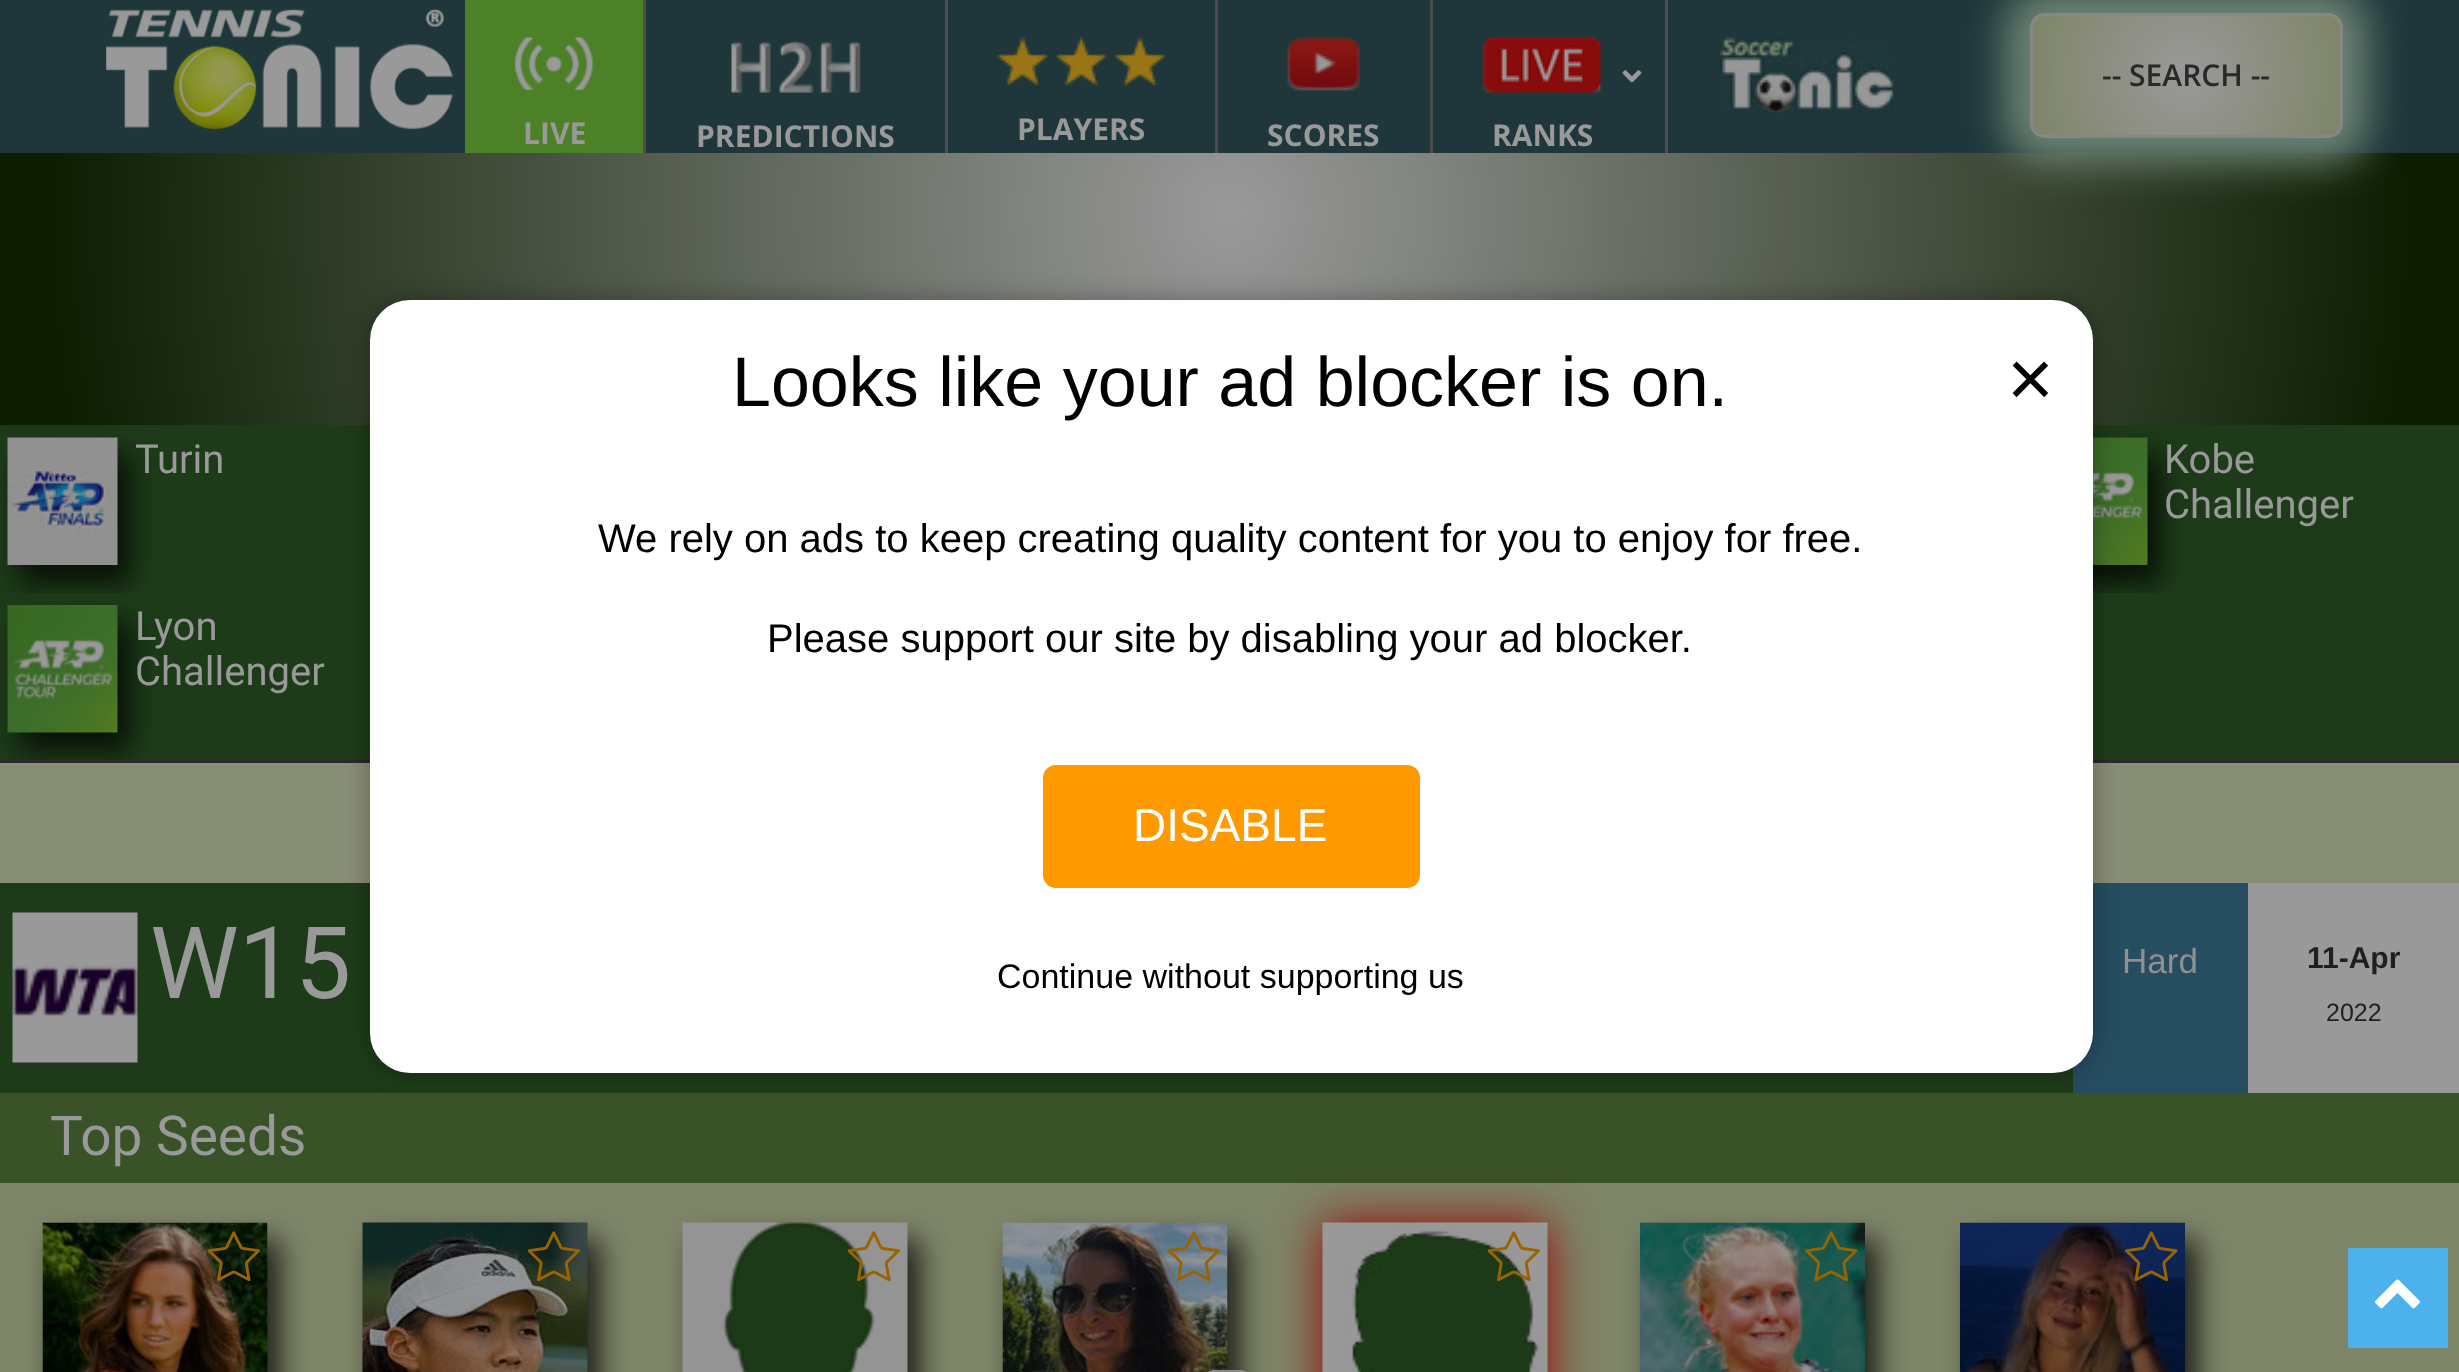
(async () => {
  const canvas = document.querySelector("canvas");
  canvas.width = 2459;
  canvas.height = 1372;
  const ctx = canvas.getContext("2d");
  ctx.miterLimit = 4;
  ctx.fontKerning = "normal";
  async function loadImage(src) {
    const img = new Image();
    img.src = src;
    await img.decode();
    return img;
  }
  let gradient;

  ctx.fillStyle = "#888d76";
  ctx.fillRect(0, 0, 2459, 1372);
  ctx.fillStyle = "#1f373b";
  ctx.fillRect(0, 0, 2459, 153);
  ctx.drawImage(await loadImage("img/1.png"), 106, 9, 347, 121);
  ctx.fillStyle = "#1d3b19";
  ctx.fillRect(0, 425, 2459, 335);
  ctx.save();
  ctx.beginPath();
  ctx.rect(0, 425, 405, 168);
  ctx.clip();
  ctx.fillStyle = "rgba(0, 0, 0, 0.75)";
  ctx.filter = "blur(14px)";
  ctx.beginPath();
  ctx.rect(20, 455, 110, 128);
  ctx.fill();
  ctx.filter = "none";
  ctx.restore();
  ctx.save();
  ctx.beginPath();
  ctx.rect(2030, 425, 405, 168);
  ctx.clip();
  ctx.fillStyle = "rgba(0, 0, 0, 0.75)";
  ctx.filter = "blur(14px)";
  ctx.beginPath();
  ctx.rect(2050, 455, 110, 128);
  ctx.fill();
  ctx.filter = "none";
  ctx.restore();
  gradient = ctx.createRadialGradient(1230, 213, 0, 1230, 213, 1248);
  gradient.addColorStop(0, "#999999");
  gradient.addColorStop(0.95, "#0c1d01");
  ctx.fillStyle = gradient;
  ctx.fillRect(0, 153, 2459, 272);
  ctx.fillStyle = "#6e8574";
  ctx.filter = "blur(20px)";
  ctx.beginPath();
  ctx.roundRect(2005, -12, 363, 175, 40);
  ctx.fill();
  ctx.filter = "none";
  ctx.save();
  ctx.beginPath();
  ctx.roundRect(2030, 13, 313, 125, 15);
  ctx.clip();
  gradient = ctx.createRadialGradient(2186, 75, 0, 2186, 75, 165);
  gradient.addColorStop(0, "#999999");
  gradient.addColorStop(1, "#7e8568");
  ctx.fillStyle = gradient;
  ctx.fillRect(2033, 15, 307, 120);
  ctx.restore();
  ctx.beginPath();
  ctx.roundRect(2031.5, 14.5, 310, 122, 13.5);
  ctx.strokeStyle = "#878787";
  ctx.lineWidth = 3;
  ctx.stroke();
  ctx.fillStyle = "#4d8128";
  ctx.fillRect(465, 0, 178, 153);
  ctx.drawImage(await loadImage("img/2.png"), 515, 37, 78, 53);
  ctx.fillStyle = "#4d4d4d";
  ctx.fillRect(643, 0, 3, 153);
  ctx.drawImage(await loadImage("img/3.png"), 731, 41, 130, 52);
  ctx.fillRect(945, 0, 3, 153);
  ctx.drawImage(await loadImage("img/4.png"), 996, 37, 169, 48);
  ctx.fillRect(1215, 0, 3, 153);
  ctx.drawImage(await loadImage("img/5.png"), 1287, 37, 73, 54);
  ctx.fillRect(1430, 0, 3, 153);
  ctx.drawImage(await loadImage("img/6.png"), 1482, 37, 119, 56);
  ctx.drawImage(await loadImage("img/7.png"), 1622, 70, 20, 13);
  ctx.fillRect(1665, 0, 3, 153);
  ctx.drawImage(await loadImage("img/8.png"), 1717, 37, 177, 76);
  ctx.fillStyle = "#292929";
  ctx.fillRect(0, 760, 2459, 3);
  ctx.drawImage(await loadImage("img/9.png"), 7, 437, 111, 128);
  ctx.drawImage(await loadImage("img/10.png"), 2093, 437, 55, 128);
  ctx.save();
  ctx.beginPath();
  ctx.rect(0, 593, 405, 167);
  ctx.clip();
  ctx.fillStyle = "rgba(0, 0, 0, 0.75)";
  ctx.filter = "blur(14px)";
  ctx.beginPath();
  ctx.rect(20, 623, 110, 127);
  ctx.fill();
  ctx.filter = "none";
  ctx.restore();
  ctx.drawImage(await loadImage("img/11.png"), 7, 605, 111, 128);
  ctx.fillStyle = "#1d3b19";
  ctx.fillRect(0, 883, 2073, 210);
  ctx.drawImage(await loadImage("img/12.png"), 12, 912, 126, 151);
  for (const [x, y, w, h, color] of [
    [2073, 883, 175, 210, "#264d60"],
    [2248, 883, 211, 210, "#999999"],
    [0, 1093, 2459, 90, "#395228"],
    [0, 1183, 2459, 189, "#7e8568"],
  ]) {
    ctx.fillStyle = color;
    ctx.fillRect(x, y, w, h);
  }
  ctx.fillStyle = "rgba(0, 0, 0, 0.75)";
  ctx.filter = "blur(14px)";
  ctx.beginPath();
  ctx.rect(55, 1240, 225, 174);
  ctx.fill();
  ctx.filter = "none";
  ctx.drawImage(await loadImage("img/13.png"), 42, 1222, 226, 150);
  ctx.drawImage(await loadImage("img/14.png"), 208, 1231, 52, 51);
  ctx.filter = "blur(14px)";
  ctx.beginPath();
  ctx.rect(375, 1240, 225, 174);
  ctx.fill();
  ctx.filter = "none";
  ctx.drawImage(await loadImage("img/15.png"), 362, 1222, 226, 150);
  ctx.drawImage(await loadImage("img/16.png"), 528, 1231, 52, 51);
  ctx.filter = "blur(14px)";
  ctx.beginPath();
  ctx.rect(695, 1240, 225, 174);
  ctx.fill();
  ctx.filter = "none";
  ctx.drawImage(await loadImage("img/17.png"), 682, 1222, 226, 150);
  ctx.drawImage(await loadImage("img/18.png"), 848, 1231, 52, 51);
  ctx.filter = "blur(14px)";
  ctx.beginPath();
  ctx.rect(1015, 1240, 225, 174);
  ctx.fill();
  ctx.filter = "none";
  ctx.drawImage(await loadImage("img/19.png"), 1002, 1222, 226, 150);
  ctx.drawImage(await loadImage("img/20.png"), 1168, 1231, 52, 51);
  ctx.fillStyle = "#990000";
  ctx.filter = "blur(24px)";
  ctx.beginPath();
  ctx.rect(1323, 1223, 225, 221);
  ctx.fill();
  ctx.filter = "none";
  ctx.drawImage(await loadImage("img/21.png"), 1322, 1222, 226, 150);
  ctx.drawImage(await loadImage("img/22.png"), 1488, 1231, 52, 51);
  ctx.fillStyle = "rgba(0, 0, 0, 0.75)";
  ctx.filter = "blur(14px)";
  ctx.beginPath();
  ctx.rect(1653, 1240, 225, 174);
  ctx.fill();
  ctx.filter = "none";
  ctx.drawImage(await loadImage("img/23.png"), 1640, 1222, 225, 150);
  ctx.drawImage(await loadImage("img/24.png"), 1805, 1231, 53, 51);
  ctx.filter = "blur(14px)";
  ctx.beginPath();
  ctx.rect(1973, 1240, 225, 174);
  ctx.fill();
  ctx.filter = "none";
  ctx.drawImage(await loadImage("img/25.png"), 1960, 1222, 225, 150);
  ctx.drawImage(await loadImage("img/26.png"), 2125, 1231, 53, 51);
  ctx.fillStyle = "rgba(0, 0, 0, 0.3)";
  ctx.filter = "blur(12.5px)";
  ctx.beginPath();
  ctx.roundRect(370, 300, 1723, 773, 40);
  ctx.fill();
  ctx.filter = "none";
  ctx.fillStyle = "#ffffff";
  ctx.beginPath();
  ctx.roundRect(370, 300, 1723, 773, 40);
  ctx.fill();
  ctx.fillStyle = "#ff9900";
  ctx.beginPath();
  ctx.roundRect(1043, 765, 377, 123, 13);
  ctx.fill();
  ctx.fillStyle = "#4db2ec";
  ctx.fillRect(2348, 1248, 100, 100);
  ctx.drawImage(await loadImage("img/27.png"), 2375, 1279, 45, 30);
  ctx.beginPath();
  ctx.roundRect(1201.5, 1371.5, 52, 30, 26);
  ctx.strokeStyle = "rgba(247, 247, 247, 0.75)";
  ctx.stroke();
  ctx.beginPath();
  ctx.roundRect(1201.5, 1371.5, 52, 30, 26);
  ctx.strokeStyle = "#888888";
  ctx.stroke();
  ctx.font = "600 30px Open Sans";
  ctx.fillStyle = "#292929";
  ctx.fillText("-- SEARCH --", 2102, 86);
  ctx.font = "bold 30px Open Sans";
  ctx.fillStyle = "#999999";
  for (const [text, x, y] of [
    ["LIVE", 523, 144],
    ["PREDICTIONS", 696, 147],
    ["PLAYERS", 1017, 140],
    ["SCORES", 1267, 146],
    ["RANKS", 1492, 146],
  ]) {
    ctx.fillText(text, x, y);
  }
  ctx.font = "40px Roboto";
  for (const [text, x, y] of [
    ["Turin", 135, 473],
    ["Kobe", 2164, 473],
    ["Challenger", 2164, 518],
    ["Lyon", 135, 640],
    ["Challenger", 135, 685],
  ]) {
    ctx.fillText(text, x, y);
  }
  ctx.font = "100px Roboto";
  ctx.fillText("W15", 150, 998);
  ctx.font = "35px Liberation Sans";
  ctx.fillStyle = "#909090";
  ctx.fillText("Hard", 2122, 973);
  ctx.font = "bold 30px Liberation Sans";
  ctx.fillStyle = "#1f1f1f";
  ctx.fillText("11-Apr", 2307, 968);
  ctx.font = "25px Liberation Sans";
  ctx.fillText("2022", 2326, 1021);
  ctx.font = "55px Roboto";
  ctx.fillStyle = "#999999";
  ctx.fillText("Top Seeds", 50, 1155);
  ctx.font = "70px Liberation Sans";
  ctx.fillStyle = "#000000";
  ctx.fillText("Looks like your ad blocker is on.", 732, 406);
  ctx.font = "80px Liberation Sans";
  ctx.fillText("×", 2007, 406);
  ctx.font = "40px Liberation Sans";
  ctx.fillText("We rely on ads to keep creating quality content for you to enjoy for free.", 598, 552);
  ctx.fillText("Please support our site by disabling your ad blocker.", 767, 652);
  ctx.font = "46px Liberation Sans";
  ctx.fillStyle = "#ffffff";
  ctx.fillText("DISABLE", 1133, 841);
  ctx.font = "34px Liberation Sans";
  ctx.fillStyle = "#000000";
  ctx.fillText("Continue without supporting us", 997, 988);
})();
